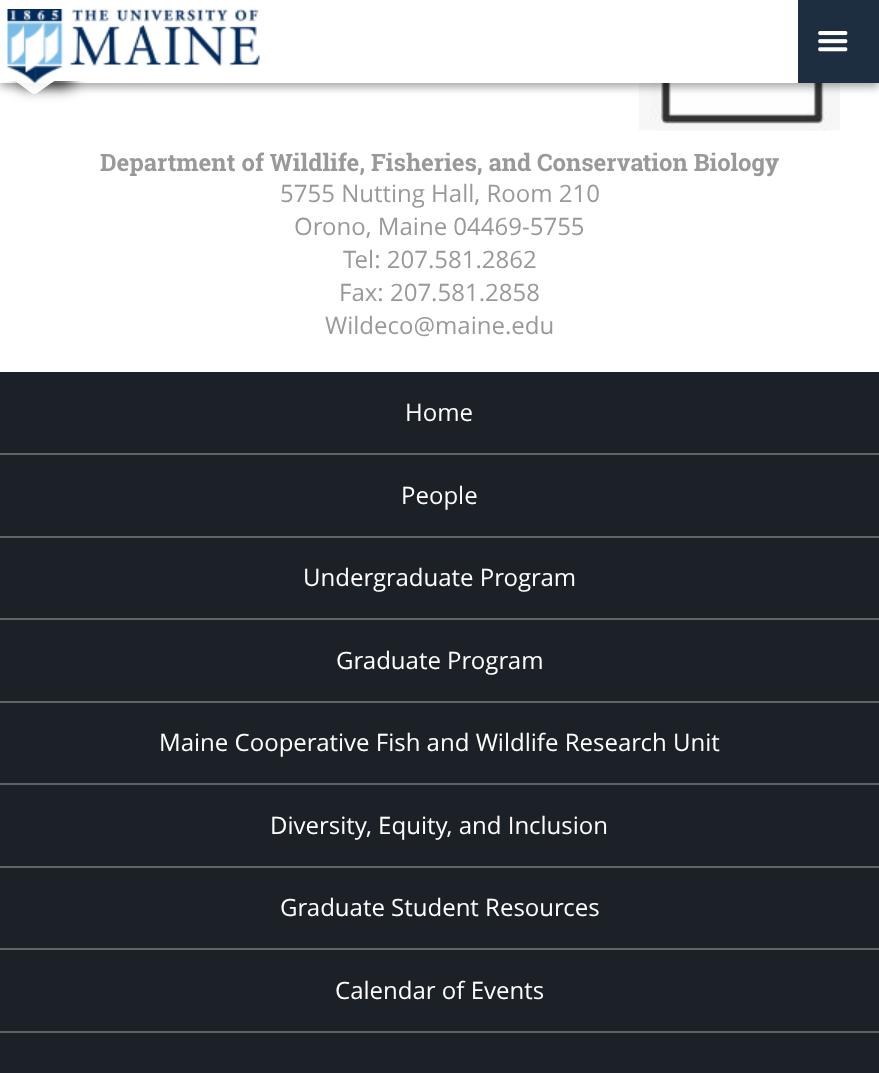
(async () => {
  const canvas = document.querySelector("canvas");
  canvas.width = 879;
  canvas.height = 1073;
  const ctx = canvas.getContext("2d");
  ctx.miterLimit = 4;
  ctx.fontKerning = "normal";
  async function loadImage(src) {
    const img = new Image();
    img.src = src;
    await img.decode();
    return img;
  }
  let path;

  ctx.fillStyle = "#ffffff";
  ctx.fillRect(0, 0, 879, 1073);
  ctx.drawImage(await loadImage("img/3.png"), 639, 83, 201, 48);
  ctx.fillStyle = "rgba(0, 0, 0, 0.35)";
  ctx.filter = "blur(4px)";
  ctx.beginPath();
  ctx.rect(0, 5, 879, 82);
  ctx.fill();
  ctx.filter = "none";
  ctx.fillStyle = "#ffffff";
  ctx.fillRect(0, 0, 798, 83);
  ctx.save();
  path = new Path2D("M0 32H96V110H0ZM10.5 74.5L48.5 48C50 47 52.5 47 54 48L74.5 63C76 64 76 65.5 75 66.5L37 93C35.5 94 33 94 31.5 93L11 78C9.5 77 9.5 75.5 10.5 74.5Z");
  ctx.clip(path, "evenodd");
  ctx.fillStyle = "rgba(0, 0, 0, 0.85)";
  ctx.filter = "blur(7.5px)";
  ctx.beginPath();
  ctx.roundRect(20, 56, 52, 30, 3);
  ctx.fill();
  ctx.filter = "none";
  ctx.restore();
  ctx.fillStyle = "rgba(255, 255, 255, 0.85)";
  path = new Path2D("M11 75L49 48C50 47 52 47 54 48L75 63C76 64 76 65 75 66L37 93C35 94 33 94 32 93L11 78C9 77 9 76 11 75Z");
  ctx.fill(path);
  ctx.fillStyle = "#ffffff";
  ctx.fillRect(3, 39, 86, 42);
  ctx.drawImage(await loadImage("img/1.png"), 7, 9, 253, 74);
  ctx.fillStyle = "#1c2e3f";
  ctx.fillRect(798, 0, 81, 83);
  ctx.drawImage(await loadImage("img/2.png"), 818, 31, 30, 21);
  for (const [x, y, w, h, color] of [
    [0, 372, 879, 701, "#1c2128"],
    [0, 453, 879, 2, "#606469"],
    [0, 536, 879, 2, "#606469"],
    [0, 618, 879, 2, "#606469"],
    [0, 701, 879, 2, "#606469"],
    [0, 783, 879, 2, "#606469"],
    [0, 866, 879, 2, "#606469"],
    [0, 948, 879, 2, "#606469"],
    [0, 1031, 879, 2, "#606469"],
  ]) {
    ctx.fillStyle = color;
    ctx.fillRect(x, y, w, h);
  }
  ctx.font = "bold 24px Roboto Slab";
  ctx.fillStyle = "#999999";
  ctx.fillText("Department of Wildlife, Fisheries, and Conservation Biology", 100, 171);
  ctx.font = "24px Open Sans";
  for (const [text, x, y] of [
    ["5755 Nutting Hall, Room 210", 280, 202],
    ["Orono, Maine 04469-5755", 294, 235],
    ["Tel: 207.581.2862", 343, 268],
    ["Fax: 207.581.2858", 339, 301],
    ["Wildeco@maine.edu", 325, 334],
  ]) {
    ctx.fillText(text, x, y);
  }
  ctx.fillStyle = "#ffffff";
  for (const [text, x, y] of [
    ["Home", 405, 421],
    ["People", 401, 504],
    ["Undergraduate Program", 303, 586],
    ["Graduate Program", 336, 669],
    ["Maine Cooperative Fish and Wildlife Research Unit", 159, 751],
    ["Diversity, Equity, and Inclusion", 270, 834],
    ["Graduate Student Resources", 280, 916],
    ["Calendar of Events", 335, 999],
  ]) {
    ctx.fillText(text, x, y);
  }
})();
